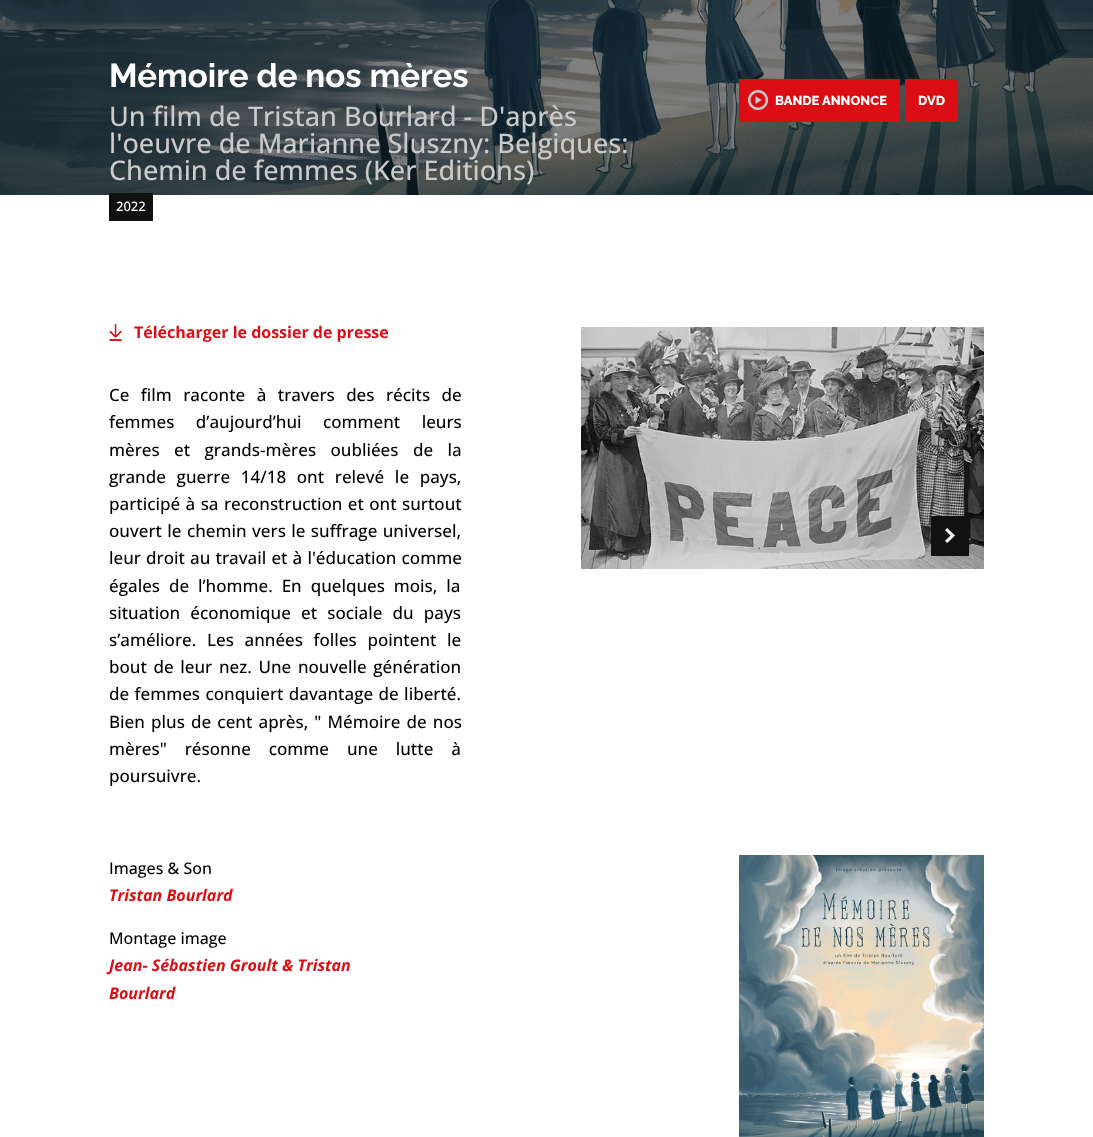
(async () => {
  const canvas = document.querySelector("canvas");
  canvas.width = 1093;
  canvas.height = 1137;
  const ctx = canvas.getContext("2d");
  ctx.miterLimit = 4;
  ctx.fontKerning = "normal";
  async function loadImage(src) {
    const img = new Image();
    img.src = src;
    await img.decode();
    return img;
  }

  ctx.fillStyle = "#ffffff";
  ctx.fillRect(0, 0, 1093, 1137);
  ctx.fillStyle = "#000000";
  ctx.fillRect(0, 0, 1093, 195);
  ctx.drawImage(await loadImage("img/1.png"), 0, 0, 1093, 195);
  ctx.fillStyle = "#111111";
  ctx.fillRect(109, 193, 44, 28);
  ctx.fillStyle = "#db0d15";
  ctx.fillRect(739, 79, 161, 43);
  ctx.drawImage(await loadImage("img/2.png"), 748, 90, 20, 20);
  ctx.fillRect(905, 79, 53, 43);
  ctx.drawImage(await loadImage("img/3.png"), 109, 324, 13, 17);
  ctx.drawImage(await loadImage("img/4.png"), 581, 327, 403, 242);
  ctx.fillStyle = "#111111";
  ctx.fillRect(931, 516, 38, 40);
  ctx.drawImage(await loadImage("img/5.png"), 945, 528, 10, 15);
  ctx.drawImage(await loadImage("img/6.png"), 739, 855, 245, 282);
  ctx.font = "bold 33px Raleway";
  ctx.fillStyle = "#ffffff";
  ctx.fillText("Mémoire de nos mères", 109, 87);
  ctx.font = "500 27px Open Sans";
  ctx.fillStyle = "#cacaca";
  for (const [text, x, y] of [
    ["Un film de Tristan Bourlard - D'après", 109, 126],
    ["l'oeuvre de Marianne Sluszny: Belgiques:", 109, 153],
    ["Chemin de femmes (Ker Editions)", 109, 180],
  ]) {
    ctx.fillText(text, x, y);
  }
  ctx.font = "500 13px Open Sans";
  ctx.fillStyle = "#ffffff";
  ctx.fillText("2022", 116, 211);
  ctx.font = "800 13px Raleway";
  ctx.fillText("BANDE ANNONCE", 775, 105);
  ctx.fillText("DVD", 918, 105);
  ctx.font = "bold 16px Open Sans";
  ctx.fillStyle = "#db0d15";
  ctx.fillText("Télécharger le dossier de presse", 134, 338);
  ctx.wordSpacing = "7px";
  ctx.font = "500 17px Open Sans";
  ctx.fillStyle = "#000000";
  ctx.fillText("Ce film raconte à travers des récits de", 109, 401);
  ctx.wordSpacing = "17px";
  ctx.fillText("femmes d’aujourd’hui comment leurs", 109, 428);
  ctx.wordSpacing = "10px";
  ctx.fillText("mères et grands-mères oubliées de la", 109, 456);
  ctx.wordSpacing = "6.25px";
  ctx.fillText("grande guerre 14/18 ont relevé le pays,", 109, 483);
  ctx.wordSpacing = "1px";
  ctx.fillText("participé à sa reconstruction et ont surtout", 109, 510);
  ctx.fillText("ouvert le chemin vers le suffrage universel,", 109, 537);
  ctx.wordSpacing = "0.75px";
  ctx.fillText("leur droit au travail et à l'éducation comme", 109, 564);
  ctx.wordSpacing = "4.5px";
  ctx.fillText("égales de l’homme. En quelques mois, la", 109, 592);
  ctx.wordSpacing = "5.75px";
  ctx.fillText("situation économique et sociale du pays", 109, 619);
  ctx.wordSpacing = "6.25px";
  ctx.fillText("s’améliore. Les années folles pointent le", 109, 646);
  ctx.wordSpacing = "2.25px";
  ctx.fillText("bout de leur nez. Une nouvelle génération", 109, 673);
  ctx.wordSpacing = "1px";
  ctx.fillText("de femmes conquiert davantage de liberté.", 109, 700);
  ctx.wordSpacing = "1.75px";
  ctx.fillText("Bien plus de cent après, \" Mémoire de nos", 109, 728);
  ctx.wordSpacing = "13.5px";
  ctx.fillText("mères\" résonne comme une lutte à", 109, 755);
  ctx.wordSpacing = "0px";
  ctx.fillText("poursuivre.", 109, 782);
  ctx.font = "500 16px Open Sans";
  ctx.fillText("Images & Son", 109, 874);
  ctx.font = "italic bold 16px Open Sans";
  ctx.fillStyle = "#db0d15";
  ctx.fillText("Tristan Bourlard", 109, 901);
  ctx.font = "500 16px Open Sans";
  ctx.fillStyle = "#000000";
  ctx.fillText("Montage image", 109, 944);
  ctx.font = "italic bold 16px Open Sans";
  ctx.fillStyle = "#db0d15";
  ctx.fillText("Jean- Sébastien Groult & Tristan", 109, 971);
  ctx.fillText("Bourlard", 109, 999);
})();
